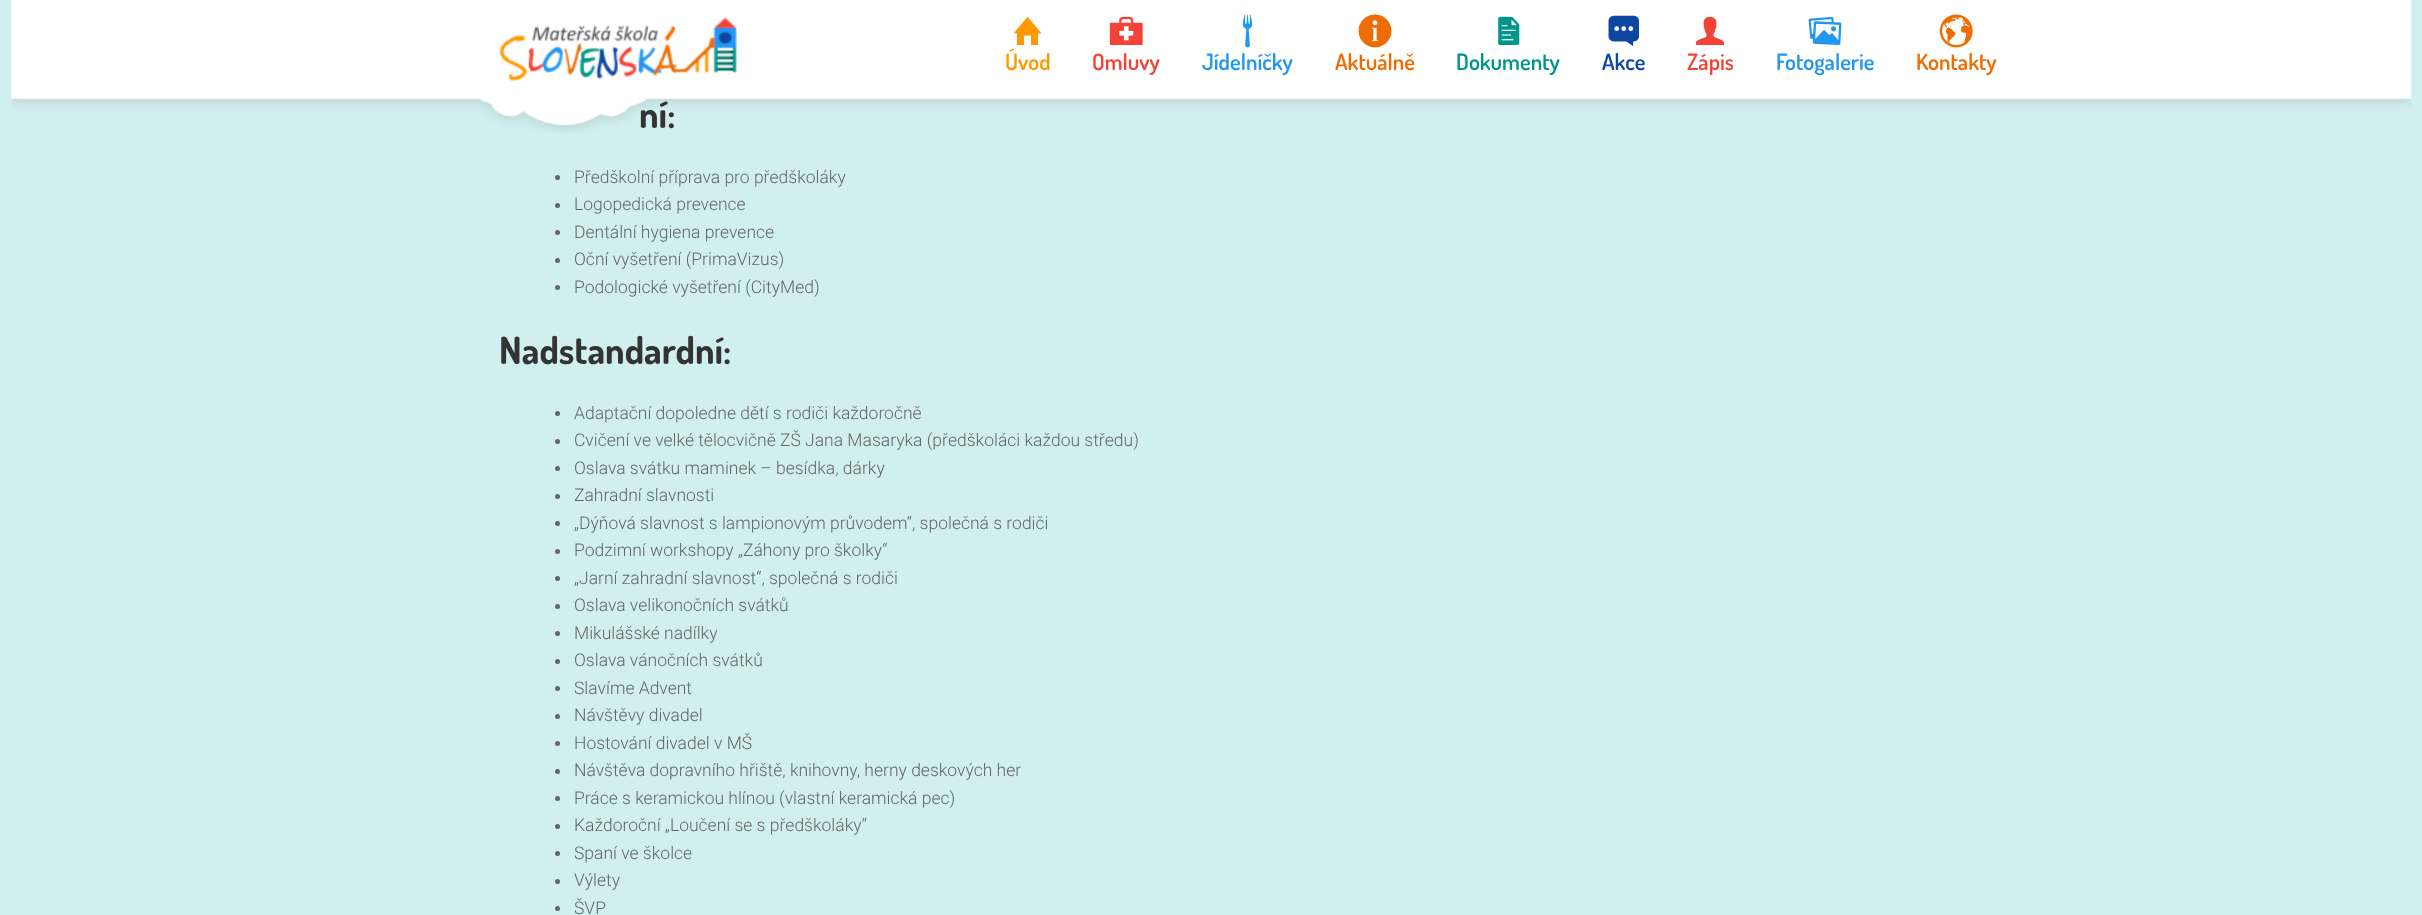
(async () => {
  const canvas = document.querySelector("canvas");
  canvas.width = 2422;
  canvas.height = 915;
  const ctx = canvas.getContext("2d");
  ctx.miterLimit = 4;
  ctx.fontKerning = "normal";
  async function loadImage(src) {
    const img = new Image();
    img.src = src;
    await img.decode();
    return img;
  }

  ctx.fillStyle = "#d1efef";
  ctx.fillRect(0, 0, 2422, 915);
  ctx.fillStyle = "#666666";
  ctx.beginPath();
  ctx.arc(557.5, 177.5, 2.5, 0, Math.PI * 2);
  ctx.fill();
  ctx.beginPath();
  ctx.arc(557.5, 205.5, 2.5, 0, Math.PI * 2);
  ctx.fill();
  ctx.beginPath();
  ctx.arc(557.5, 232.5, 2.5, 0, Math.PI * 2);
  ctx.fill();
  ctx.beginPath();
  ctx.arc(557.5, 260.5, 2.5, 0, Math.PI * 2);
  ctx.fill();
  ctx.beginPath();
  ctx.arc(557.5, 287.5, 2.5, 0, Math.PI * 2);
  ctx.fill();
  ctx.beginPath();
  ctx.arc(557.5, 413.5, 2.5, 0, Math.PI * 2);
  ctx.fill();
  ctx.beginPath();
  ctx.arc(557.5, 441.5, 2.5, 0, Math.PI * 2);
  ctx.fill();
  ctx.beginPath();
  ctx.arc(557.5, 468.5, 2.5, 0, Math.PI * 2);
  ctx.fill();
  ctx.beginPath();
  ctx.arc(557.5, 496.5, 2.5, 0, Math.PI * 2);
  ctx.fill();
  ctx.beginPath();
  ctx.arc(557.5, 523.5, 2.5, 0, Math.PI * 2);
  ctx.fill();
  ctx.beginPath();
  ctx.arc(557.5, 551.5, 2.5, 0, Math.PI * 2);
  ctx.fill();
  ctx.beginPath();
  ctx.arc(557.5, 578.5, 2.5, 0, Math.PI * 2);
  ctx.fill();
  ctx.beginPath();
  ctx.arc(557.5, 606.5, 2.5, 0, Math.PI * 2);
  ctx.fill();
  ctx.beginPath();
  ctx.arc(557.5, 633.5, 2.5, 0, Math.PI * 2);
  ctx.fill();
  ctx.beginPath();
  ctx.arc(557.5, 661.5, 2.5, 0, Math.PI * 2);
  ctx.fill();
  ctx.beginPath();
  ctx.arc(557.5, 688.5, 2.5, 0, Math.PI * 2);
  ctx.fill();
  ctx.beginPath();
  ctx.arc(557.5, 716.5, 2.5, 0, Math.PI * 2);
  ctx.fill();
  ctx.beginPath();
  ctx.arc(557.5, 743.5, 2.5, 0, Math.PI * 2);
  ctx.fill();
  ctx.beginPath();
  ctx.arc(557.5, 771.5, 2.5, 0, Math.PI * 2);
  ctx.fill();
  ctx.beginPath();
  ctx.arc(557.5, 798.5, 2.5, 0, Math.PI * 2);
  ctx.fill();
  ctx.beginPath();
  ctx.arc(557.5, 826.5, 2.5, 0, Math.PI * 2);
  ctx.fill();
  ctx.beginPath();
  ctx.arc(557.5, 853.5, 2.5, 0, Math.PI * 2);
  ctx.fill();
  ctx.beginPath();
  ctx.arc(557.5, 881.5, 2.5, 0, Math.PI * 2);
  ctx.fill();
  ctx.beginPath();
  ctx.arc(557.5, 908.5, 2.5, 0, Math.PI * 2);
  ctx.fill();
  ctx.font = "bold 37.5px Dosis";
  ctx.fillStyle = "#333333";
  ctx.fillText("ní:", 639, 128);
  ctx.drawImage(await loadImage("img/1.png"), 11, 0, 2401, 133);
  ctx.font = "600 22.5px Dosis";
  ctx.fillStyle = "#ef6c00";
  ctx.fillText("Kontakty", 1916, 70);
  ctx.drawImage(await loadImage("img/11.png"), 1939, 14, 34, 34);
  ctx.fillStyle = "#2196f3";
  ctx.fillText("Fotogalerie", 1776, 70);
  ctx.drawImage(await loadImage("img/10.png"), 1808, 16, 34, 29);
  ctx.fillStyle = "#f44336";
  ctx.fillText("Zápis", 1687, 70);
  ctx.drawImage(await loadImage("img/9.png"), 1695, 16, 30, 29);
  ctx.fillStyle = "#0d47a1";
  ctx.fillText("Akce", 1602, 70);
  ctx.drawImage(await loadImage("img/8.png"), 1608, 15, 31, 31);
  ctx.fillStyle = "#009688";
  ctx.fillText("Dokumenty", 1456, 70);
  ctx.drawImage(await loadImage("img/7.png"), 1498, 16, 22, 29);
  ctx.fillStyle = "#ef6c00";
  ctx.fillText("Aktuálně", 1335, 70);
  ctx.drawImage(await loadImage("img/6.png"), 1358, 14, 34, 34);
  ctx.fillStyle = "#2196f3";
  ctx.fillText("Jídelníčky", 1202, 70);
  ctx.drawImage(await loadImage("img/5.png"), 1242, 14, 11, 34);
  ctx.fillStyle = "#f44336";
  ctx.fillText("Omluvy", 1092, 70);
  ctx.drawImage(await loadImage("img/4.png"), 1109, 16, 34, 29);
  ctx.fillStyle = "#ff9900";
  ctx.fillText("Úvod", 1005, 70);
  ctx.drawImage(await loadImage("img/3.png"), 1013, 17, 29, 28);
  ctx.drawImage(await loadImage("img/2.png"), 499, 17, 238, 65);
  ctx.font = "300 17.5px Roboto";
  ctx.fillStyle = "#666666";
  for (const [text, x, y] of [
    ["Předškolní příprava pro předškoláky", 574, 183],
    ["Logopedická prevence", 574, 210],
    ["Dentální hygiena prevence", 574, 238],
    ["Oční vyšetření (PrimaVizus)", 574, 265],
    ["Podologické vyšetření (CityMed)", 574, 293],
  ]) {
    ctx.fillText(text, x, y);
  }
  ctx.font = "bold 37.5px Dosis";
  ctx.fillStyle = "#333333";
  ctx.fillText("Nadstandardní:", 499, 364);
  ctx.font = "300 17.5px Roboto";
  ctx.fillStyle = "#666666";
  for (const [text, x, y] of [
    ["Adaptační dopoledne dětí s rodiči každoročně", 574, 419],
    ["Cvičení ve velké tělocvičně ZŠ Jana Masaryka (předškoláci každou středu)", 574, 446],
    ["Oslava svátku maminek – besídka, dárky", 574, 474],
    ["Zahradní slavnosti", 574, 501],
    ["„Dýňová slavnost s lampionovým průvodem“, společná s rodiči", 574, 529],
    ["Podzimní workshopy „Záhony pro školky“", 574, 556],
    ["„Jarní zahradní slavnost“, společná s rodiči", 574, 584],
    ["Oslava velikonočních svátků", 574, 611],
    ["Mikulášské nadílky", 574, 639],
    ["Oslava vánočních svátků", 574, 666],
    ["Slavíme Advent", 574, 694],
    ["Návštěvy divadel", 574, 721],
    ["Hostování divadel v MŠ", 574, 749],
    ["Návštěva dopravního hřiště, knihovny, herny deskových her", 574, 776],
    ["Práce s keramickou hlínou (vlastní keramická pec)", 574, 804],
    ["Každoroční „Loučení se s předškoláky“", 574, 831],
    ["Spaní ve školce", 574, 859],
    ["Výlety", 574, 886],
    ["ŠVP", 574, 914],
  ]) {
    ctx.fillText(text, x, y);
  }
})();
